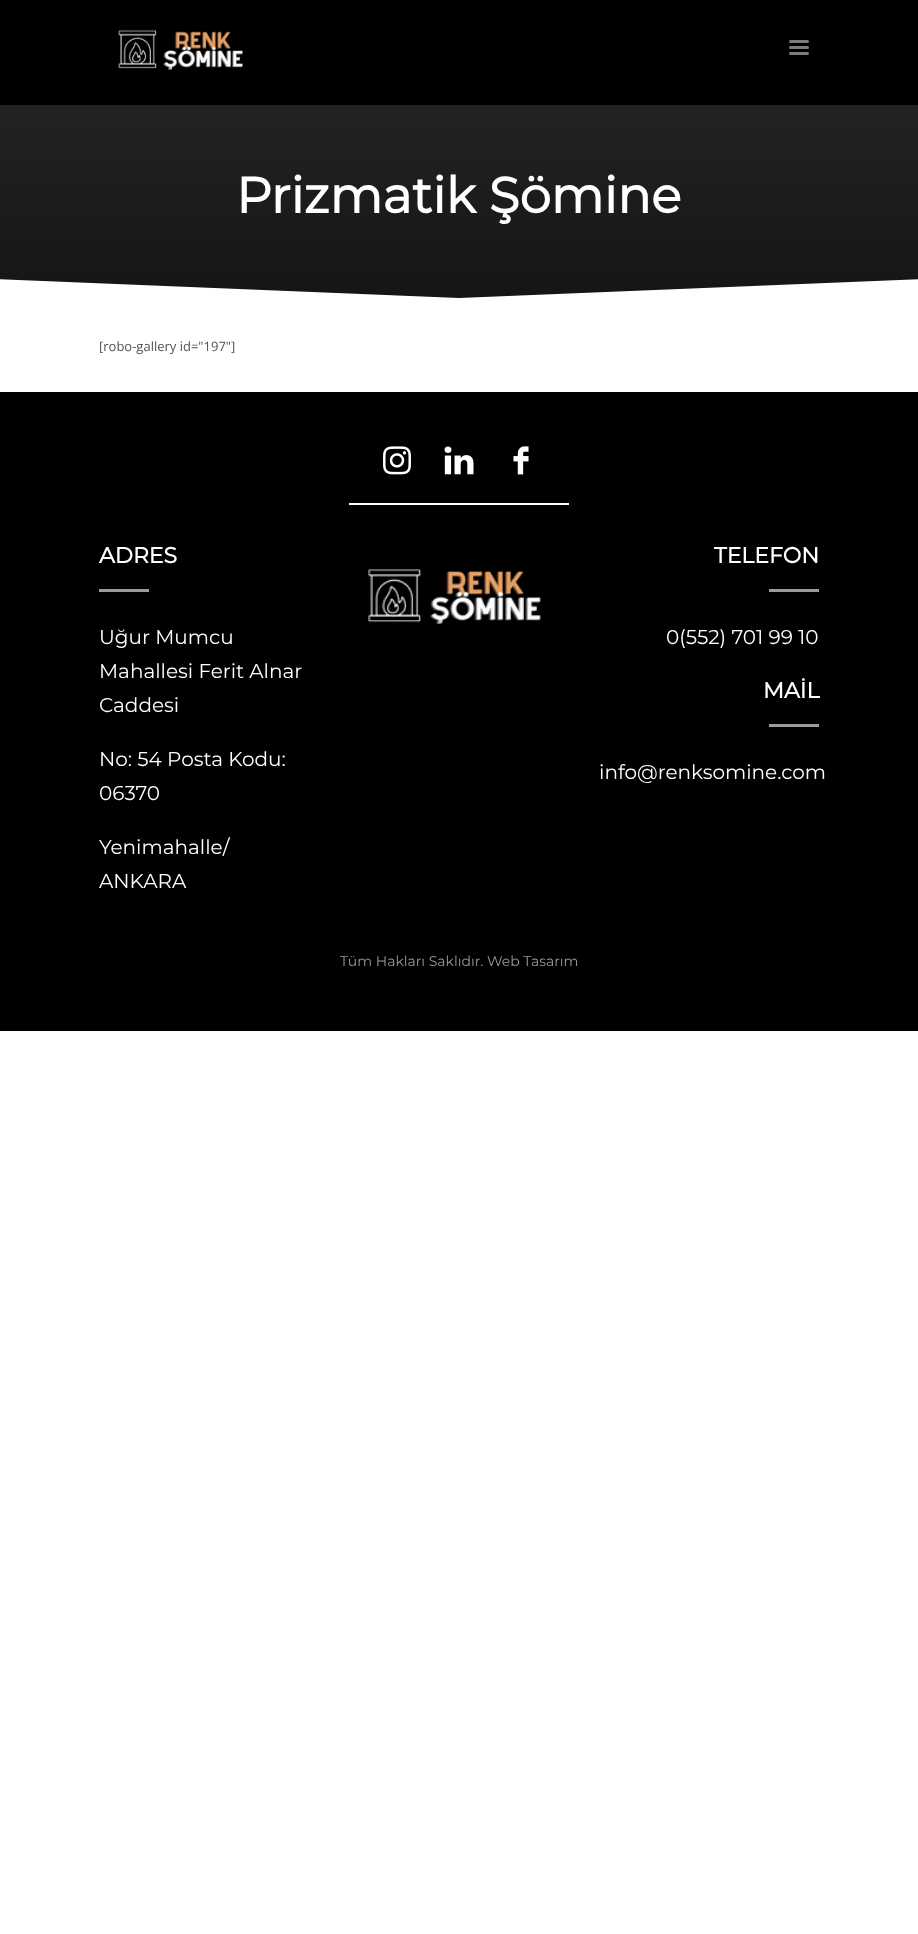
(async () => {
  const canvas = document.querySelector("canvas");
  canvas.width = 918;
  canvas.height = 1934;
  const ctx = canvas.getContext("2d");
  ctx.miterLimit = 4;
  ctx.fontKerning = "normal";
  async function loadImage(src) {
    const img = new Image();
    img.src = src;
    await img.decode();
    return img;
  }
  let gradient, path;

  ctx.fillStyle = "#ffffff";
  ctx.fillRect(0, 0, 918, 1934);
  ctx.fillStyle = "#000000";
  ctx.fillRect(0, 0, 918, 105);
  ctx.drawImage(await loadImage("img/1.png"), 118, 29, 125, 41);
  ctx.fillStyle = "#7c7c7c";
  ctx.beginPath();
  ctx.roundRect(789, 40, 20, 3, 1.5);
  ctx.fill();
  ctx.beginPath();
  ctx.roundRect(789, 46, 20, 3, 1.5);
  ctx.fill();
  ctx.beginPath();
  ctx.roundRect(789, 52, 20, 3, 1.5);
  ctx.fill();
  gradient = ctx.createLinearGradient(459, 0, 459, 300);
  gradient.addColorStop(0, "#2a2a2a");
  gradient.addColorStop(1, "#151515");
  ctx.fillStyle = gradient;
  ctx.fillRect(0, 105, 918, 193);
  ctx.fillStyle = "#ffffff";
  path = new Path2D("M-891 300V243L459 298L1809 243V300Z");
  ctx.fill(path);
  ctx.fillStyle = "#000000";
  ctx.fillRect(0, 392, 918, 639);
  ctx.drawImage(await loadImage("img/2.png"), 383, 446, 28, 29);
  ctx.drawImage(await loadImage("img/3.png"), 444, 446, 30, 29);
  ctx.drawImage(await loadImage("img/4.png"), 513, 446, 16, 29);
  ctx.fillStyle = "#ffffff";
  ctx.fillRect(349, 503, 220, 2);
  ctx.fillStyle = "#9b9b9b";
  ctx.fillRect(99, 589, 50, 3);
  ctx.drawImage(await loadImage("img/5.png"), 368, 569, 173, 56);
  ctx.fillRect(769, 589, 50, 3);
  ctx.fillRect(769, 724, 50, 3);
  ctx.font = "bold 50px Montserrat";
  ctx.fillStyle = "#ffffff";
  ctx.fillText("Prizmatik Şömine", 236, 213);
  ctx.font = "13px Open Sans";
  ctx.fillStyle = "#535353";
  ctx.fillText("[robo-gallery id=\"197\"]", 99, 351);
  ctx.font = "bold 22px Montserrat";
  ctx.fillStyle = "#ffffff";
  ctx.fillText("ADRES", 99, 563);
  ctx.font = "100 20px Montserrat";
  for (const [text, x, y] of [
    ["Uğur Mumcu", 99, 644],
    ["Mahallesi Ferit Alnar", 99, 678],
    ["Caddesi", 99, 712],
    ["No: 54 Posta Kodu:", 99, 766],
    ["06370", 99, 800],
    ["Yenimahalle/", 99, 854],
    ["ANKARA", 99, 888],
  ]) {
    ctx.fillText(text, x, y);
  }
  ctx.font = "bold 22px Montserrat";
  ctx.fillText("TELEFON", 714, 563);
  ctx.font = "100 20px Montserrat";
  ctx.fillText("0(552) 701 99 10", 666, 644);
  ctx.font = "bold 22px Montserrat";
  ctx.fillText("MAİL", 763, 698);
  ctx.font = "100 20px Montserrat";
  ctx.fillText("info@renksomine.com", 599, 779);
  ctx.font = "100 14px Montserrat";
  ctx.fillStyle = "#999999";
  ctx.fillText("Tüm Hakları Saklıdır. Web Tasarım", 340, 966);
})();
